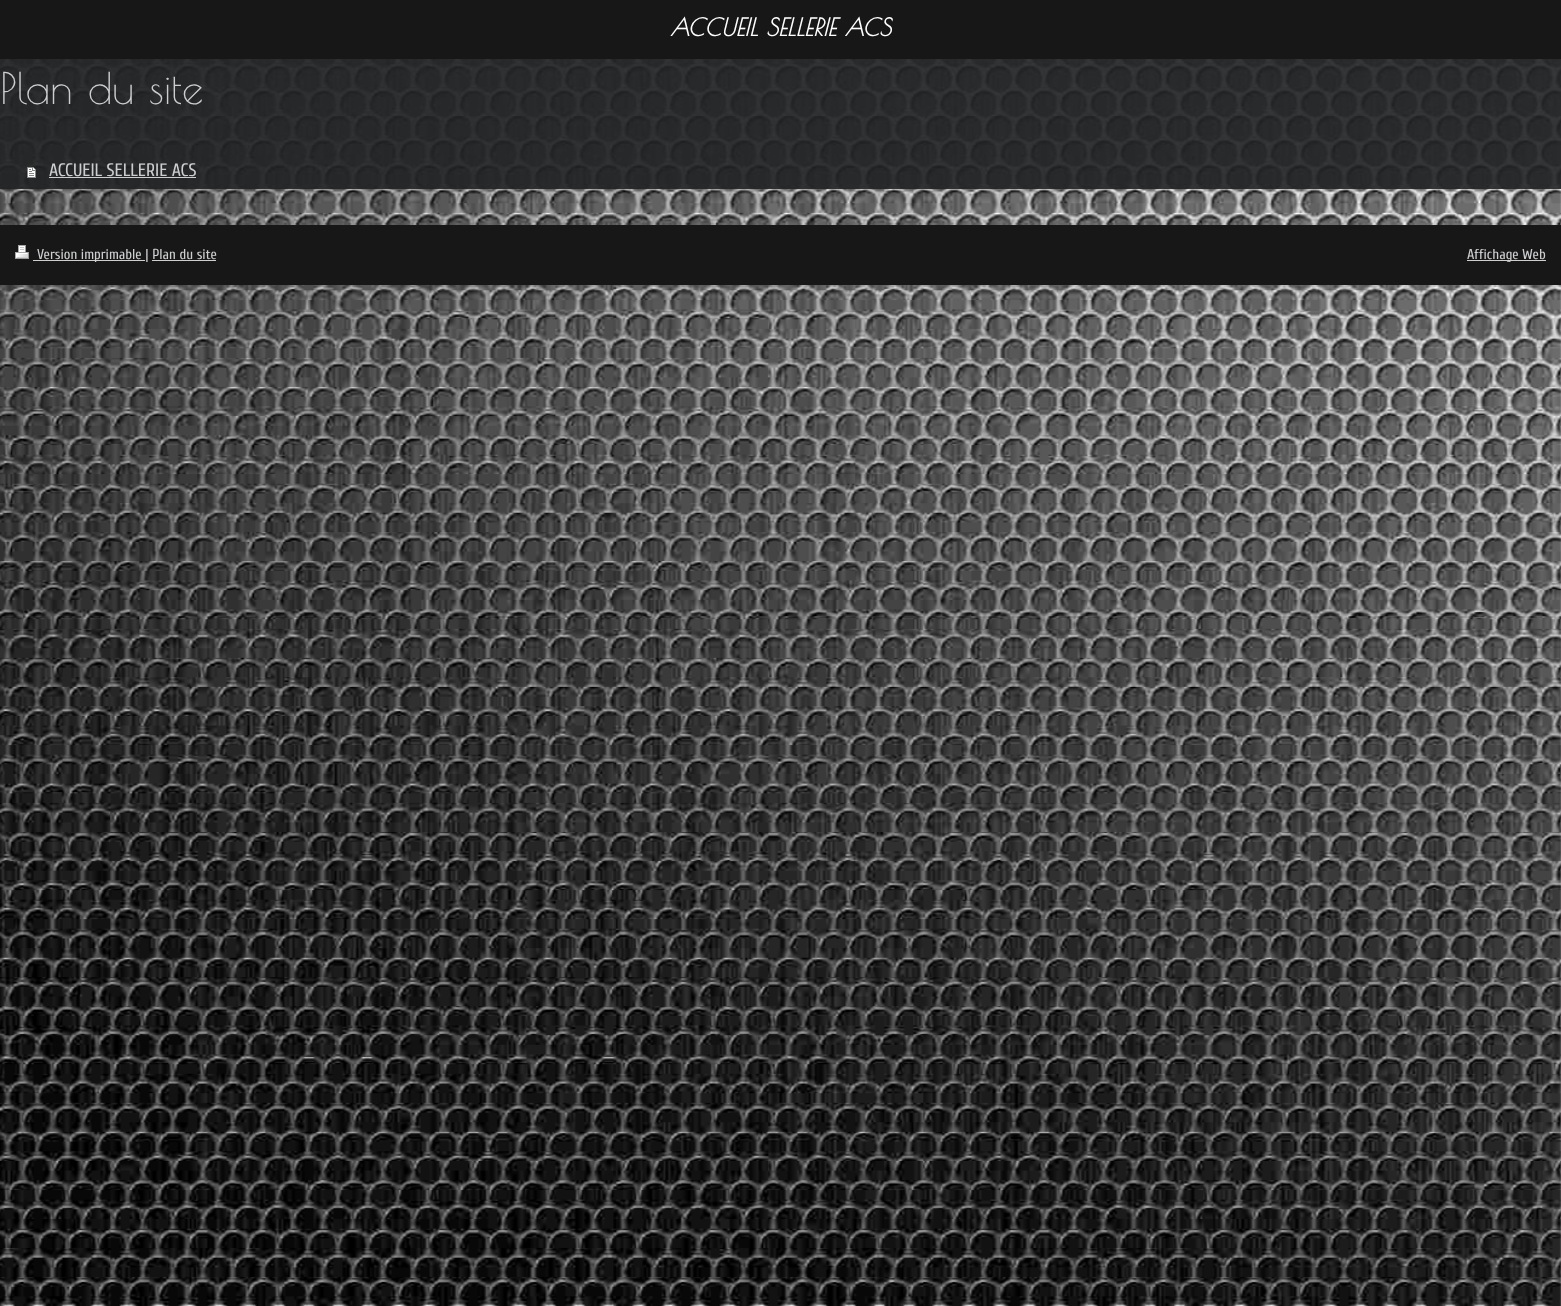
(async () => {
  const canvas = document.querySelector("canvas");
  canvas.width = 1561;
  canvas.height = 1306;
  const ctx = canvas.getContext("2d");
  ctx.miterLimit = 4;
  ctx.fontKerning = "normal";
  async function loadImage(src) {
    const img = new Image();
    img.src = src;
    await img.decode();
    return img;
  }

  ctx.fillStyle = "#ffffff";
  ctx.fillRect(0, 0, 1561, 1306);
  ctx.drawImage(await loadImage("img/1.png"), 0, 59, 1561, 1247);
  ctx.fillStyle = "#171717";
  ctx.fillRect(0, 0, 1561, 59);
  ctx.fillStyle = "rgba(33, 34, 36, 0.9)";
  ctx.fillRect(0, 59, 1561, 130);
  ctx.drawImage(await loadImage("img/2.png"), 27, 167, 9, 11);
  ctx.fillStyle = "#cdced0";
  ctx.fillRect(49, 177, 147, 1);
  ctx.fillStyle = "#171717";
  ctx.fillRect(0, 225, 1561, 60);
  ctx.drawImage(await loadImage("img/3.png"), 15, 245, 14, 14);
  ctx.fillStyle = "#cfcfcf";
  ctx.fillRect(33, 260, 112, 1);
  ctx.fillRect(1467, 260, 79, 1);
  ctx.font = "italic bold 24px Poiret One";
  ctx.fillStyle = "#ffffff";
  ctx.fillText("ACCUEIL SELLERIE ACS", 670, 36);
  ctx.font = "43px Poiret One";
  ctx.fillStyle = "#cdced0";
  ctx.fillText("Plan du site", 0, 104);
  ctx.font = "18px Cuprum";
  ctx.fillText("ACCUEIL SELLERIE ACS", 49, 176);
  ctx.font = "14.4px Cuprum";
  ctx.fillText("Version imprimable | Plan du site", 37, 259);
  ctx.fillStyle = "#cfcfcf";
  ctx.fillRect(152, 260, 64, 1);
  ctx.fillStyle = "#cdced0";
  ctx.fillText("Affichage Web", 1467, 259);
})();
